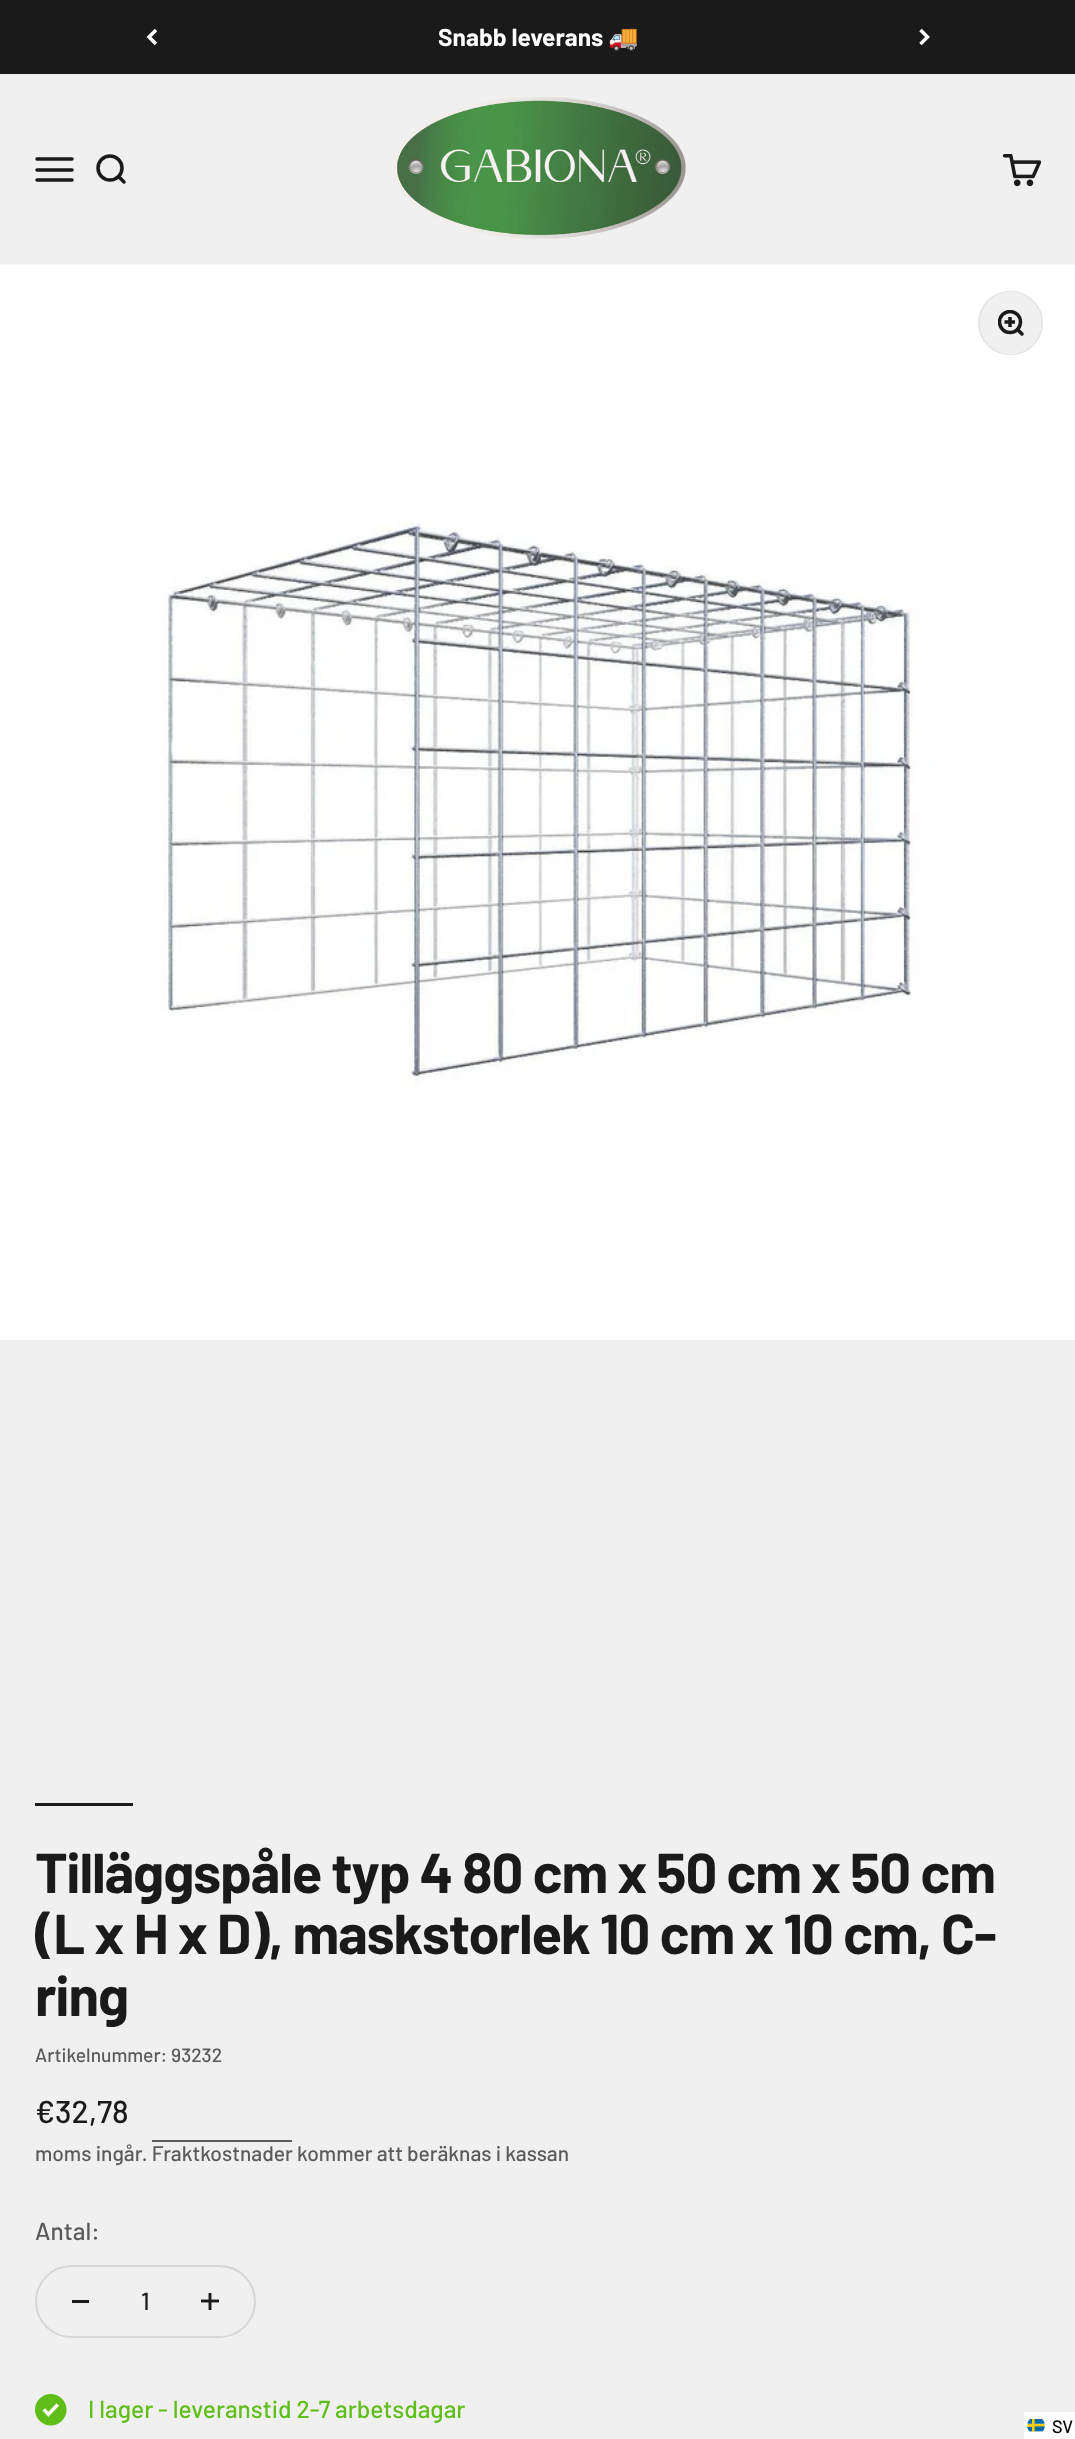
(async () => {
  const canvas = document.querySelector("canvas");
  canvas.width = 1075;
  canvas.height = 2439;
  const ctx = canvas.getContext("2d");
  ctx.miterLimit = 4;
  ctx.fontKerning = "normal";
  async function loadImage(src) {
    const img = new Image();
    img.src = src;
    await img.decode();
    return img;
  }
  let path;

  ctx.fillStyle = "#f0f0f0";
  ctx.fillRect(0, 0, 1075, 2439);
  ctx.fillStyle = "#1a1a1a";
  ctx.fillRect(0, 0, 1075, 74);
  path = new Path2D("M156 30L149 37L156 44");
  ctx.strokeStyle = "#ffffff";
  ctx.lineWidth = 3.5;
  ctx.stroke(path);
  path = new Path2D("M920.5 44L927.5 37L920.5 30");
  ctx.stroke(path);
  path = new Path2D("M37 159H72M37 170H72M37 180H72");
  ctx.strokeStyle = "#1a1a1a";
  ctx.lineCap = "round";
  ctx.stroke(path);
  ctx.beginPath();
  ctx.arc(110, 168, 12, 0, Math.PI * 2);
  ctx.stroke();
  path = new Path2D("M119 177L124 182");
  ctx.lineJoin = "round";
  ctx.stroke(path);
  ctx.drawImage(await loadImage("img/1.png"), 393, 97, 293, 142);
  ctx.drawImage(await loadImage("img/2.png"), 1003, 154, 38, 33);
  ctx.drawImage(await loadImage("img/3.png"), 0, 264, 1075, 1076);
  ctx.beginPath();
  ctx.roundRect(979, 292, 63, 62, 31);
  ctx.strokeStyle = "#e4e4e4";
  ctx.lineWidth = 2;
  ctx.lineJoin = "miter";
  ctx.stroke();
  ctx.fillStyle = "#f0f0f0";
  ctx.beginPath();
  ctx.roundRect(980, 292, 61, 62, 30.5);
  ctx.fill();
  ctx.save();
  ctx.beginPath();
  ctx.rect(998, 310, 26, 26);
  ctx.clip();
  ctx.beginPath();
  ctx.arc(1010, 322, 10.5, 0, Math.PI * 2);
  ctx.strokeStyle = "#1a1a1a";
  ctx.lineWidth = 3.5;
  ctx.stroke();
  ctx.restore();
  path = new Path2D("M1017.5 329.5L1022 334");
  ctx.strokeStyle = "#1a1a1a";
  ctx.lineWidth = 3.5;
  ctx.lineJoin = "round";
  ctx.stroke(path);
  path = new Path2D("M1010 317V327M1004.5 322H1015");
  ctx.lineCap = "butt";
  ctx.lineJoin = "miter";
  ctx.stroke(path);
  ctx.fillStyle = "#1a1a1a";
  ctx.fillRect(35, 1803, 98, 3);
  ctx.fillStyle = "#5a5a5a";
  ctx.fillRect(152, 2140, 140, 2);
  ctx.beginPath();
  ctx.roundRect(36, 2266, 219, 71, 35.5);
  ctx.strokeStyle = "#d6d6d6";
  ctx.lineWidth = 2;
  ctx.stroke();
  ctx.fillStyle = "#1a1a1a";
  ctx.fillRect(72, 2300, 17, 3);
  ctx.save();
  ctx.beginPath();
  ctx.rect(201, 2293, 18, 17);
  ctx.clip();
  path = new Path2D("M210 2292.5V2310");
  ctx.strokeStyle = "#1a1a1a";
  ctx.lineWidth = 2.9;
  ctx.stroke(path);
  ctx.restore();
  path = new Path2D("M201 2301H219");
  ctx.strokeStyle = "#1a1a1a";
  ctx.lineWidth = 2.9;
  ctx.stroke(path);
  ctx.drawImage(await loadImage("img/4.png"), 35, 2394, 32, 32);
  ctx.fillStyle = "#ffffff";
  ctx.fillRect(1024, 2412, 51, 27);
  ctx.drawImage(await loadImage("img/5.png"), 1027, 2419, 18, 13);
  ctx.font = "bold 24.5px Barlow";
  ctx.fillText("Snabb leverans", 438, 46);
  ctx.font = "bold 24.5px Noto Color Emoji";
  ctx.fillText("🚚", 608, 46);
  ctx.letterSpacing = "-1.1px";
  ctx.font = "bold 56px Barlow";
  ctx.fillStyle = "#1a1a1a";
  for (const [text, x, y] of [
    ["Tilläggspåle typ 4 80 cm x 50 cm x 50 cm", 35, 1893],
    ["(L x H x D), maskstorlek 10 cm x 10 cm, C-", 35, 1954],
    ["ring", 35, 2016],
  ]) {
    ctx.fillText(text, x, y);
  }
  ctx.letterSpacing = "0px";
  ctx.font = "500 19.25px Barlow";
  ctx.fillStyle = "#5a5a5a";
  ctx.fillText("Artikelnummer: 93232", 35, 2062);
  ctx.font = "500 31.5px Barlow";
  ctx.fillStyle = "#1a1a1a";
  ctx.fillText("€32,78", 35, 2123);
  ctx.font = "500 21px Barlow";
  ctx.fillStyle = "#5a5a5a";
  ctx.fillText("moms ingår. Fraktkostnader kommer att beräknas i kassan", 35, 2161);
  ctx.font = "500 24.5px Barlow";
  ctx.fillText("Antal:", 35, 2240);
  ctx.fillStyle = "#1a1a1a";
  ctx.fillText("1", 141, 2310);
  ctx.fillStyle = "#60be18";
  ctx.fillText("I lager - leveranstid 2-7 arbetsdagar", 88, 2418);
  ctx.font = "500 18px Barlow";
  ctx.fillStyle = "#000000";
  ctx.fillText("SV", 1052, 2433);
})();
